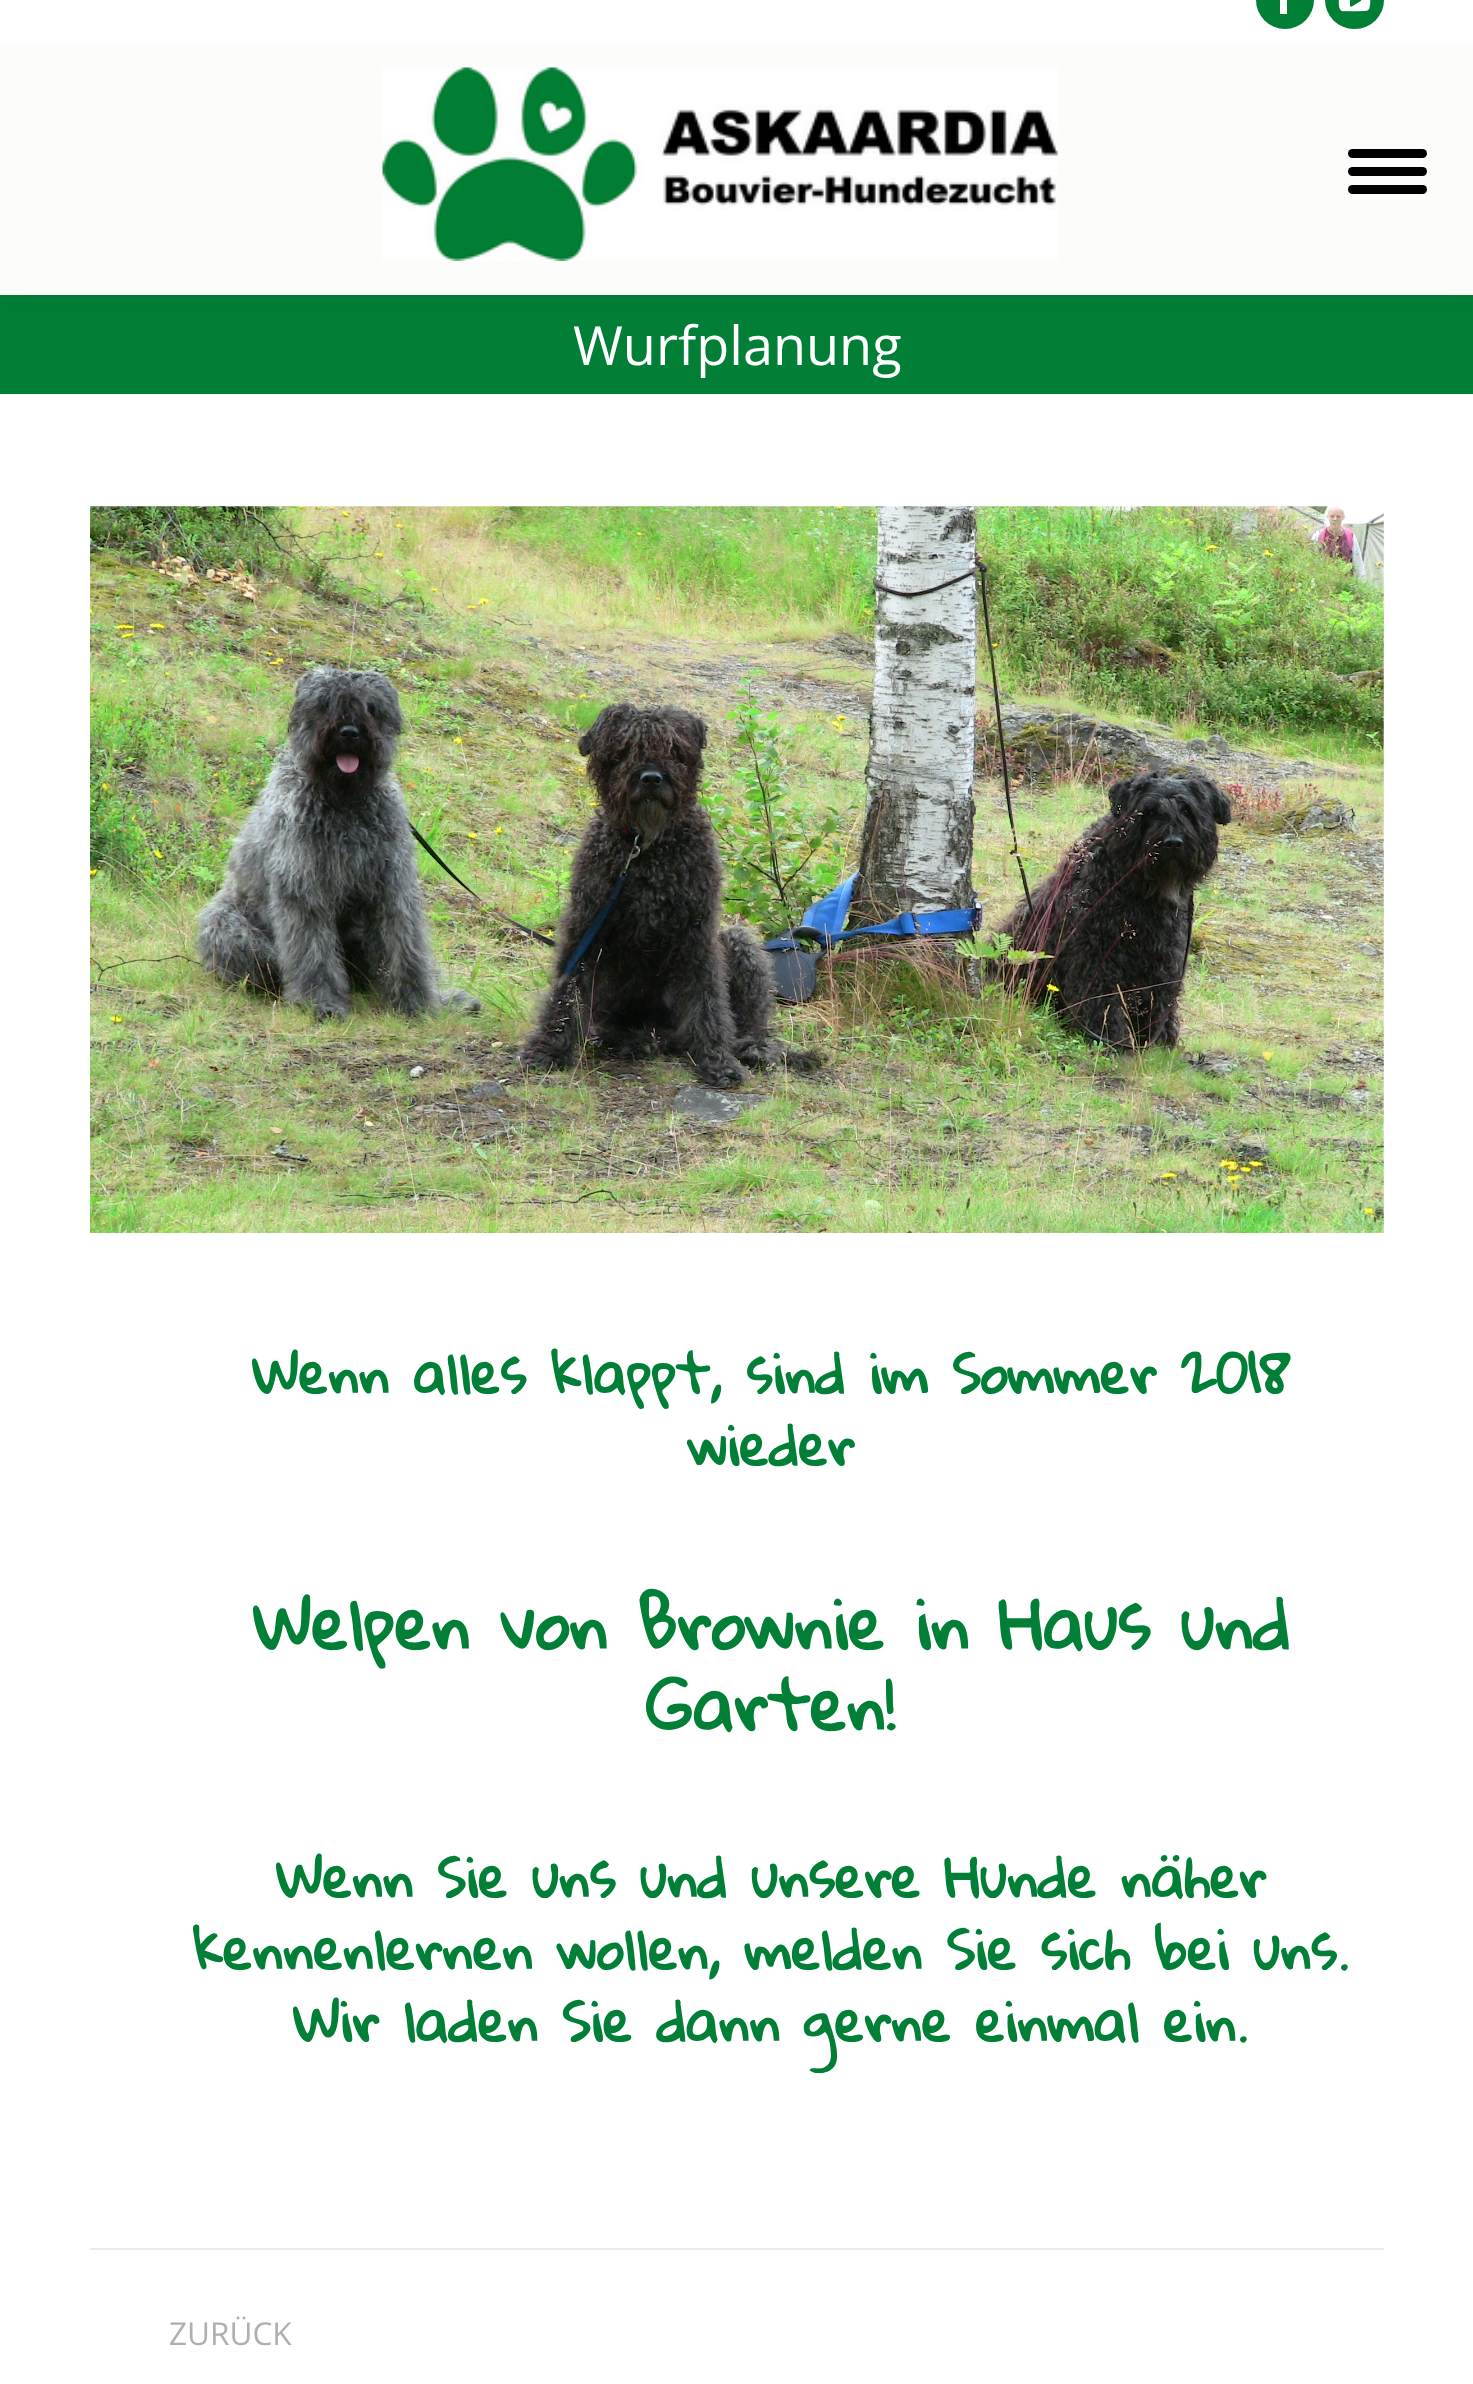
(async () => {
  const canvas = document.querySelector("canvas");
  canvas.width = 1473;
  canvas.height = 2384;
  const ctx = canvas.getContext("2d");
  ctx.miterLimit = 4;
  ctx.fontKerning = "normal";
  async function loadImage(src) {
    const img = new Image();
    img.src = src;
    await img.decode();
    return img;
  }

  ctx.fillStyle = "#ffffff";
  ctx.fillRect(0, 0, 1473, 2384);
  ctx.fillStyle = "#017f36";
  ctx.fillRect(0, 295, 1473, 99);
  ctx.fillStyle = "rgba(0, 0, 0, 0.07)";
  ctx.filter = "blur(17px)";
  ctx.beginPath();
  ctx.rect(-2, -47, 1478, 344);
  ctx.fill();
  ctx.filter = "none";
  ctx.fillStyle = "#fcfcfb";
  ctx.fillRect(0, 45, 1473, 250);
  ctx.fillStyle = "#ffffff";
  ctx.fillRect(0, 0, 1473, 45);
  ctx.fillStyle = "#017f36";
  ctx.beginPath();
  ctx.arc(1285, 0, 29, 0, Math.PI * 2);
  ctx.fill();
  ctx.fillStyle = "#ffffff";
  ctx.fillRect(1280, 0, 7, 14);
  ctx.fillStyle = "#017f36";
  ctx.beginPath();
  ctx.roundRect(1325, -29, 59, 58, 29);
  ctx.fill();
  ctx.drawImage(await loadImage("img/1.png"), 1338, 0, 33, 12);
  ctx.drawImage(await loadImage("img/2.png"), 382, 67, 676, 194);
  ctx.fillStyle = "#000000";
  ctx.beginPath();
  ctx.roundRect(1348, 149, 79, 9, 4.5);
  ctx.fill();
  ctx.beginPath();
  ctx.roundRect(1348, 167, 79, 9, 4.5);
  ctx.fill();
  ctx.beginPath();
  ctx.roundRect(1348, 185, 79, 9, 4.5);
  ctx.fill();
  ctx.drawImage(await loadImage("img/3.png"), 90, 506, 1294, 727);
  ctx.fillStyle = "#ebebeb";
  ctx.fillRect(90, 2248, 1294, 2);
  ctx.font = "54px Open Sans";
  ctx.fillStyle = "#ffffff";
  ctx.fillText("Wurfplanung", 573, 365);
  ctx.font = "bold 54px Gloria Hallelujah";
  ctx.fillStyle = "#017f36";
  ctx.fillText("Wenn alles klappt, sind im Sommer 2018", 252, 1394);
  ctx.fillText("wieder", 687, 1466);
  ctx.font = "bold 67.5px Gloria Hallelujah";
  ctx.fillText("Welpen von Brownie in Haus und", 253, 1650);
  ctx.fillText("Garten!", 646, 1731);
  ctx.font = "bold 54px Gloria Hallelujah";
  for (const [text, x, y] of [
    ["Wenn Sie uns und unsere Hunde näher", 276, 1898],
    ["kennenlernen wollen, melden Sie sich bei uns.", 192, 1970],
    ["Wir laden Sie dann gerne einmal ein.", 293, 2042],
  ]) {
    ctx.fillText(text, x, y);
  }
  ctx.font = "31.5px Open Sans";
  ctx.fillStyle = "#adafb3";
  ctx.fillText("ZURÜCK", 169, 2345);
})();
